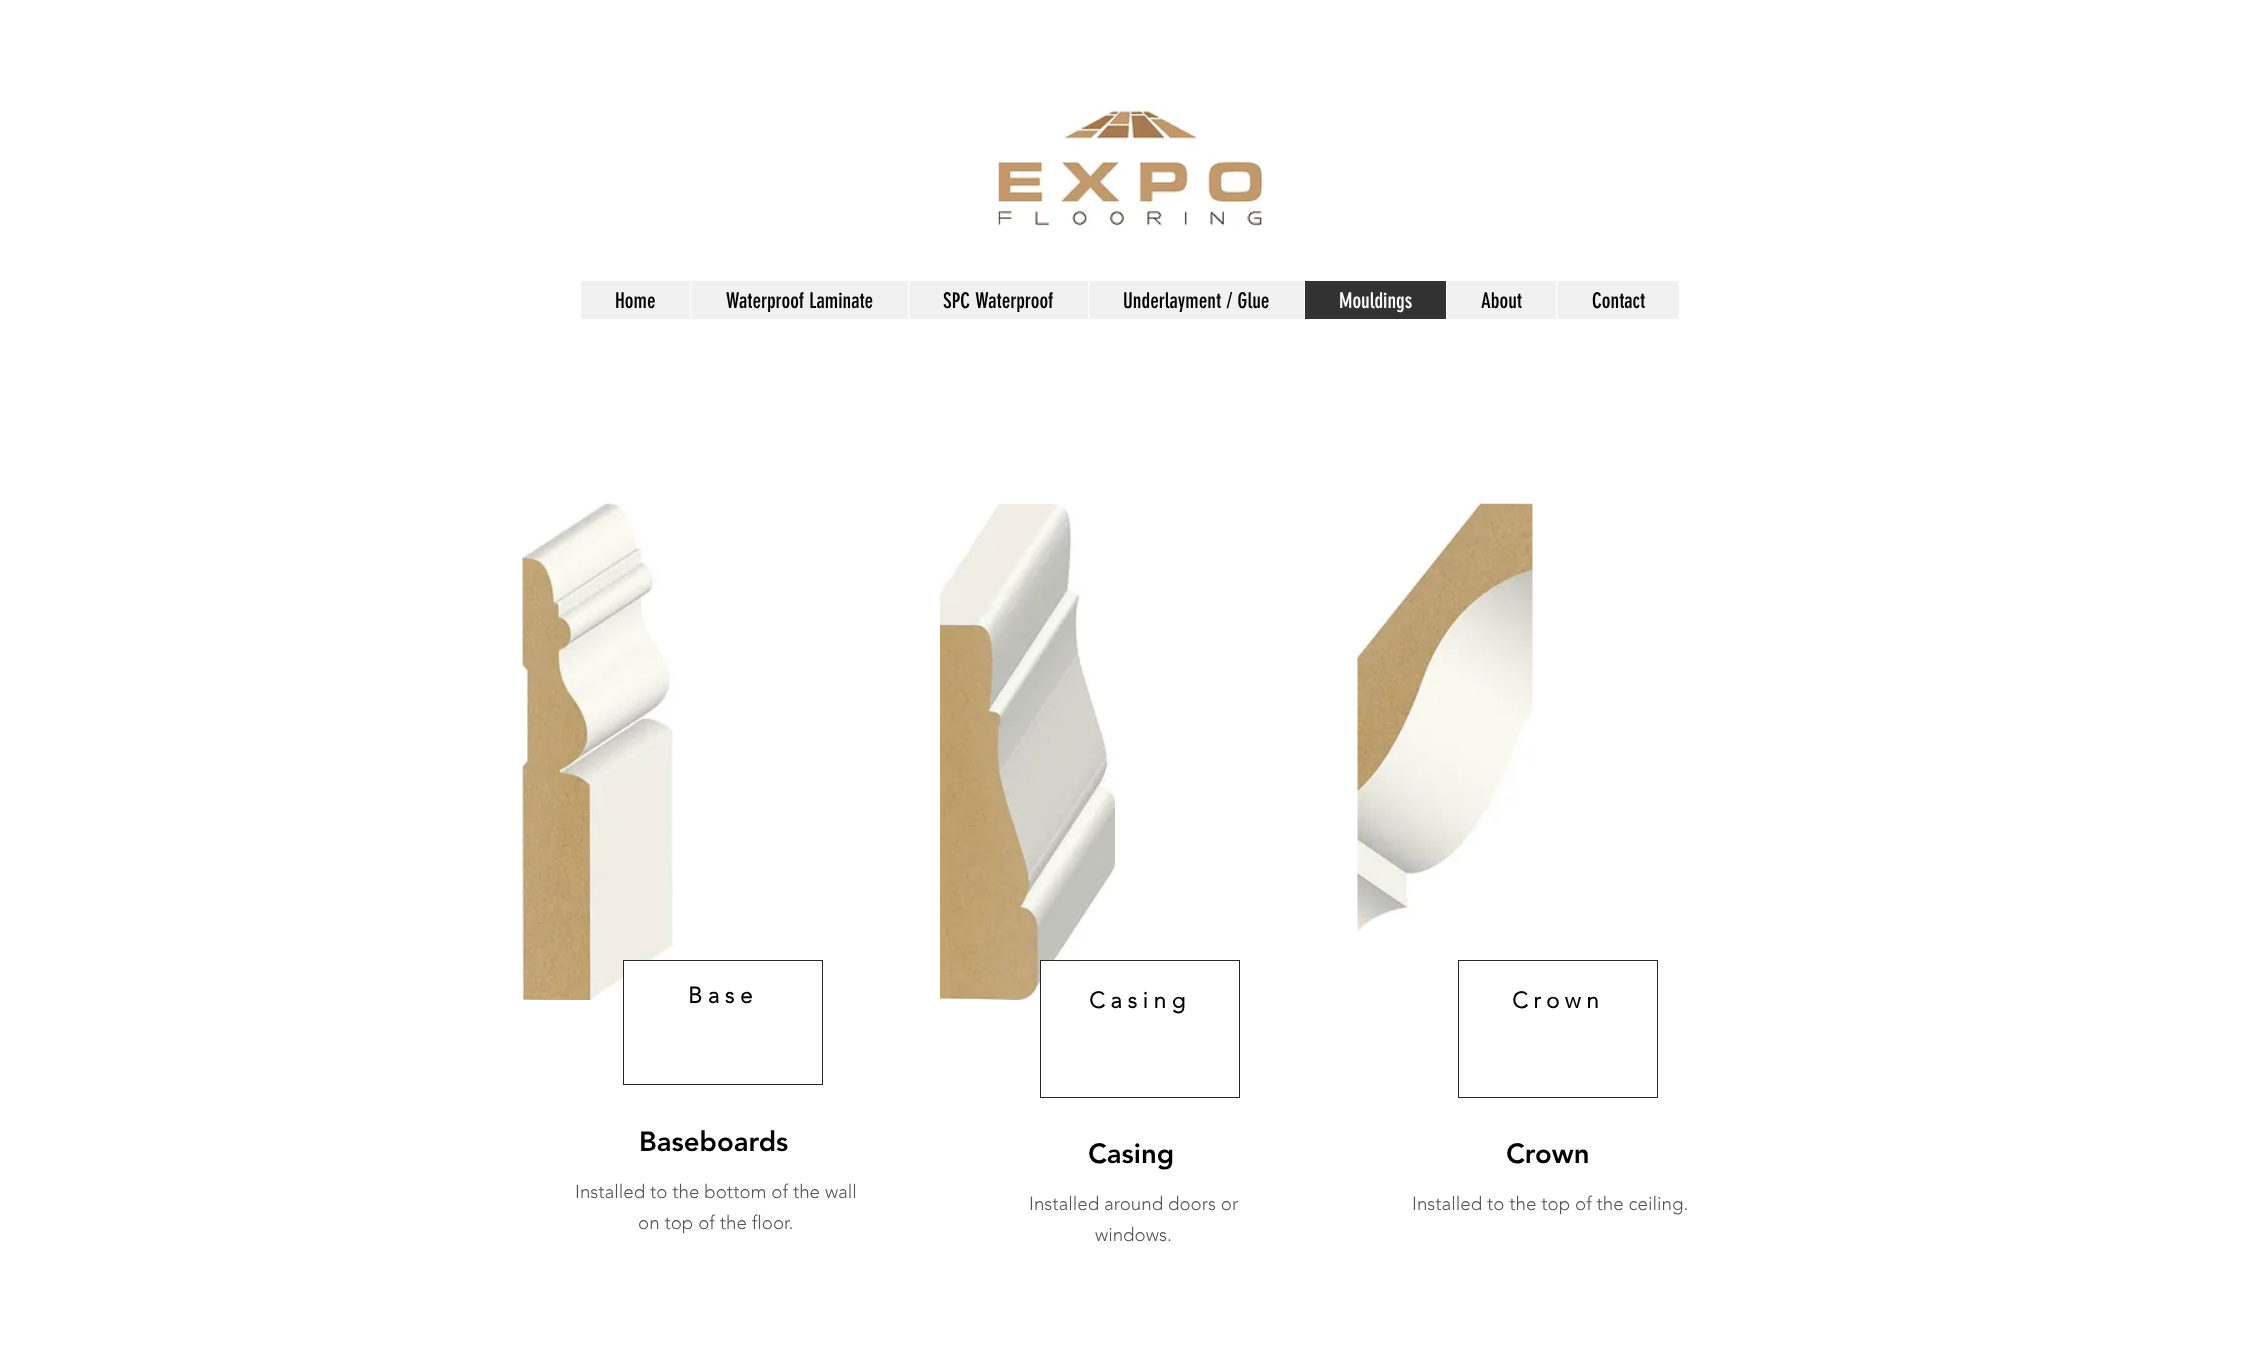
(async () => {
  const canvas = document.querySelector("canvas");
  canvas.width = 2259;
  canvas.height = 1368;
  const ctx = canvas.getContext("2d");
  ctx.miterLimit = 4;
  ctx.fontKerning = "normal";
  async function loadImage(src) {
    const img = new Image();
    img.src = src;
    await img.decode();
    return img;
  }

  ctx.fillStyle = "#ffffff";
  ctx.fillRect(0, 0, 2259, 1368);
  ctx.drawImage(await loadImage("img/1.png"), 998, 109, 265, 118);
  for (const [x, y, w, h, color] of [
    [581, 281, 1098, 38, "#f1f1f1"],
    [690, 281, 1, 38, "#ffffff"],
    [908, 281, 1, 38, "#ffffff"],
    [1088, 281, 1, 38, "#ffffff"],
    [1305, 281, 141, 38, "#323232"],
    [1304, 281, 1, 38, "#ffffff"],
    [1446, 281, 1, 38, "#ffffff"],
    [1556, 281, 1, 38, "#ffffff"],
  ]) {
    ctx.fillStyle = color;
    ctx.fillRect(x, y, w, h);
  }
  ctx.drawImage(await loadImage("img/2.png"), 522, 503, 152, 497);
  ctx.fillRect(624, 961, 34, 27);
  ctx.strokeStyle = "#282626";
  ctx.strokeRect(623.5, 960.5, 199, 124);
  ctx.drawImage(await loadImage("img/3.png"), 940, 503, 175, 497);
  ctx.fillRect(1041, 961, 19, 33);
  ctx.strokeRect(1040.5, 960.5, 199, 137);
  ctx.drawImage(await loadImage("img/4.png"), 1357, 503, 176, 429);
  ctx.strokeRect(1458.5, 960.5, 199, 137);
  ctx.font = "21.25px 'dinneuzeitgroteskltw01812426'";
  ctx.fillStyle = "#000000";
  for (const [text, x, y] of [
    ["Home", 615, 308],
    ["Waterproof Laminate", 726, 308],
    ["SPC Waterproof", 943, 308],
    ["Underlayment / Glue", 1123, 308],
  ]) {
    ctx.fillText(text, x, y);
  }
  ctx.fillStyle = "#ffffff";
  ctx.fillText("Mouldings", 1339, 308);
  ctx.fillStyle = "#000000";
  ctx.fillText("About", 1481, 308);
  ctx.fillText("Contact", 1592, 308);
  ctx.letterSpacing = "5.5px";
  ctx.font = "bold 22.5px 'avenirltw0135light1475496'";
  ctx.fillText("Base", 688, 1003);
  ctx.letterSpacing = "0px";
  ctx.font = "900 27.5px 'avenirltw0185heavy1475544'";
  ctx.fillText("Baseboards", 639, 1151);
  ctx.font = "300 18.75px 'avenirltw0135light1475496'";
  ctx.fillStyle = "#545454";
  ctx.fillText("Installed to the bottom of the wall", 575, 1198);
  ctx.fillText("on top of the floor.", 638, 1229);
  ctx.letterSpacing = "5.5px";
  ctx.font = "bold 22.5px 'avenirltw0135light1475496'";
  ctx.fillStyle = "#000000";
  ctx.fillText("Casing", 1089, 1008);
  ctx.letterSpacing = "0px";
  ctx.font = "900 27.5px 'avenirltw0185heavy1475544'";
  ctx.fillText("Casing", 1088, 1163);
  ctx.font = "300 18.75px 'avenirltw0135light1475496'";
  ctx.fillStyle = "#545454";
  ctx.fillText("Installed around doors or", 1029, 1210);
  ctx.fillText("windows.", 1095, 1241);
  ctx.letterSpacing = "5.5px";
  ctx.font = "bold 22.5px 'avenirltw0135light1475496'";
  ctx.fillStyle = "#000000";
  ctx.fillText("Crown", 1512, 1008);
  ctx.letterSpacing = "0px";
  ctx.font = "900 27.5px 'avenirltw0185heavy1475544'";
  ctx.fillText("Crown", 1506, 1163);
  ctx.font = "300 18.75px 'avenirltw0135light1475496'";
  ctx.fillStyle = "#545454";
  ctx.fillText("Installed to the top of the ceiling.", 1412, 1210);
})();
